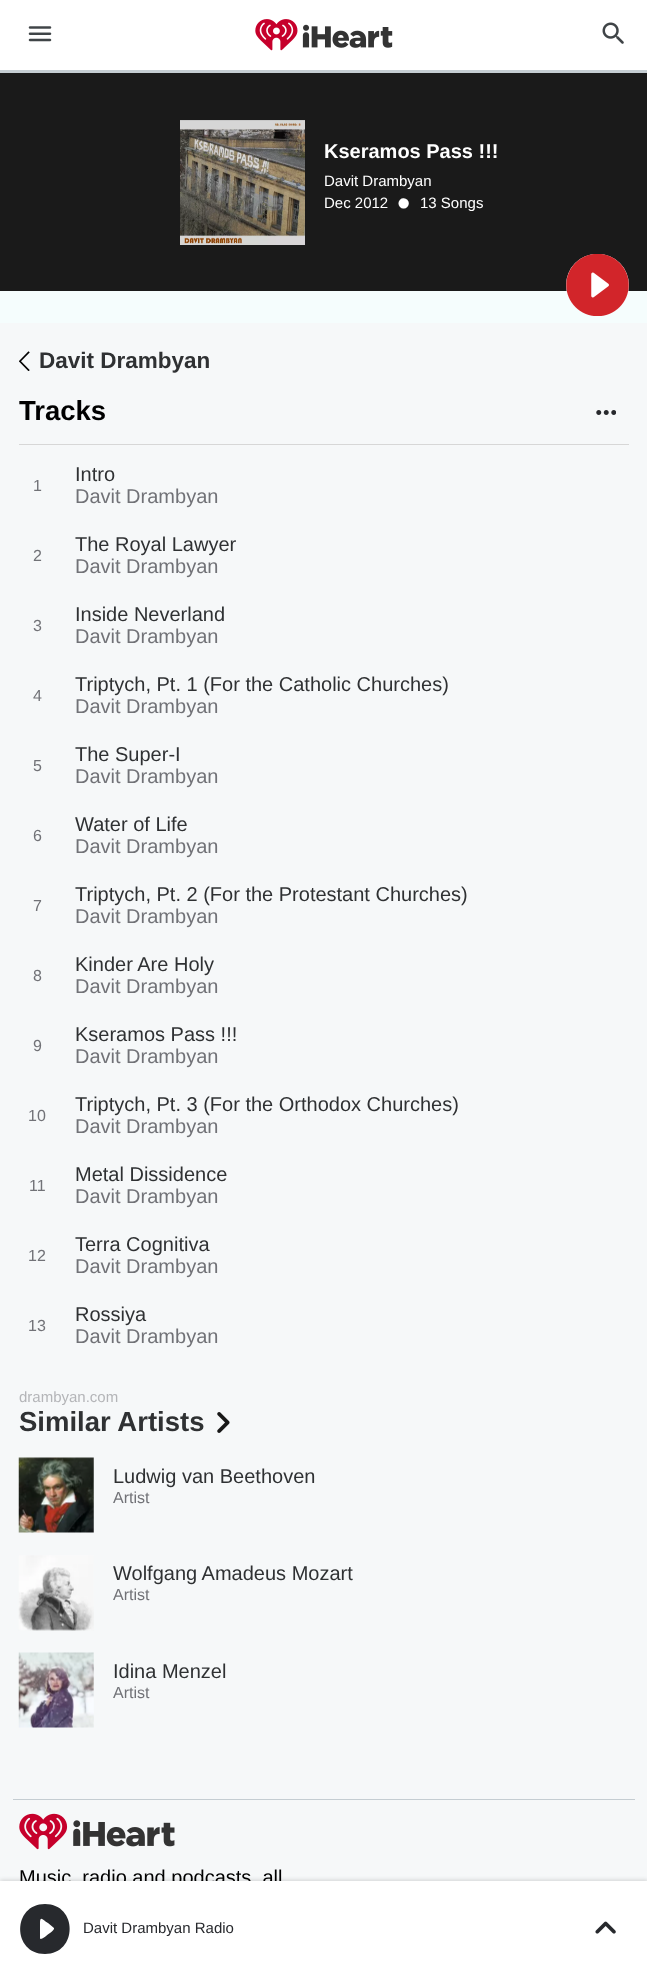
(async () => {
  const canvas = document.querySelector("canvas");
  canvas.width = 647;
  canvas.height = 1975;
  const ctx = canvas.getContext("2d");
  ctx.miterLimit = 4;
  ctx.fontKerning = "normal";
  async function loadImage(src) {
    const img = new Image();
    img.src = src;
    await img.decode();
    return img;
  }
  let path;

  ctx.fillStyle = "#f5fdfd";
  ctx.fillRect(0, 0, 647, 1975);
  ctx.fillStyle = "#ffffff";
  ctx.fillRect(0, 0, 647, 70);
  ctx.fillStyle = "#c5cdd2";
  ctx.fillRect(0, 70, 647, 3);
  ctx.drawImage(await loadImage("img/1.png"), 28, 26, 24, 16);
  ctx.drawImage(await loadImage("img/2.png"), 255, 19, 138, 32);
  ctx.drawImage(await loadImage("img/3.png"), 602, 22, 22, 22);
  ctx.fillStyle = "#1a1a1a";
  ctx.fillRect(0, 73, 647, 218);
  ctx.drawImage(await loadImage("img/4.png"), 180, 120, 125, 125);
  ctx.fillStyle = "#ffffff";
  ctx.beginPath();
  ctx.roundRect(566, 254, 63, 62, 31);
  ctx.fill();
  ctx.drawImage(await loadImage("img/5.png"), 566, 254, 63, 62);
  ctx.fillStyle = "#f6f8f9";
  ctx.fillRect(0, 323, 647, 1558);
  ctx.drawImage(await loadImage("img/6.png"), 19, 351, 11, 20);
  ctx.fillStyle = "#d7d7d7";
  ctx.fillRect(19, 444, 610, 1);
  ctx.drawImage(await loadImage("img/7.png"), 596, 410, 20, 5);
  ctx.drawImage(await loadImage("img/8.png"), 217, 1412, 13, 21);
  ctx.drawImage(await loadImage("img/9.png"), 18, 1457, 76, 76);
  ctx.drawImage(await loadImage("img/10.png"), 18, 1555, 76, 76);
  ctx.drawImage(await loadImage("img/11.png"), 18, 1652, 76, 76);
  ctx.fillStyle = "#c5cdd2";
  ctx.fillRect(13, 1799, 622, 1);
  ctx.drawImage(await loadImage("img/12.png"), 19, 1813, 156, 37);
  ctx.fillStyle = "rgba(0, 0, 0, 0.15)";
  ctx.filter = "blur(2px)";
  ctx.beginPath();
  ctx.rect(0, 1880, 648, 94);
  ctx.fill();
  ctx.filter = "none";
  ctx.font = "bold 20px Liberation Sans";
  ctx.fillStyle = "#ffffff";
  ctx.fillText("Kseramos Pass !!!", 324, 158);
  ctx.font = "15px Liberation Sans";
  ctx.fillText("Davit Drambyan", 324, 186);
  ctx.fillText("Dec 2012", 324, 208);
  ctx.font = "38px Liberation Sans";
  ctx.fillText("•", 397, 216);
  ctx.font = "15px Liberation Sans";
  ctx.fillText("13 Songs", 420, 208);
  ctx.font = "bold 22.5px Liberation Sans";
  ctx.fillStyle = "#2f3133";
  ctx.fillText("Davit Drambyan", 39, 368);
  ctx.font = "bold 27.5px Liberation Sans";
  ctx.fillStyle = "#000000";
  ctx.fillText("Tracks", 19, 420);
  ctx.font = "16px Liberation Sans";
  ctx.fillStyle = "#717277";
  ctx.fillText("1", 33, 491);
  ctx.font = "20px Liberation Sans";
  ctx.fillStyle = "#2f3133";
  ctx.fillText("Intro", 75, 481);
  ctx.fillStyle = "#717277";
  ctx.fillText("Davit Drambyan", 75, 503);
  ctx.font = "16px Liberation Sans";
  ctx.fillText("2", 33, 561);
  ctx.font = "20px Liberation Sans";
  ctx.fillStyle = "#2f3133";
  ctx.fillText("The Royal Lawyer", 75, 551);
  ctx.fillStyle = "#717277";
  ctx.fillText("Davit Drambyan", 75, 573);
  ctx.font = "16px Liberation Sans";
  ctx.fillText("3", 33, 631);
  ctx.font = "20px Liberation Sans";
  ctx.fillStyle = "#2f3133";
  ctx.fillText("Inside Neverland", 75, 621);
  ctx.fillStyle = "#717277";
  ctx.fillText("Davit Drambyan", 75, 643);
  ctx.font = "16px Liberation Sans";
  ctx.fillText("4", 33, 701);
  ctx.font = "20px Liberation Sans";
  ctx.fillStyle = "#2f3133";
  ctx.fillText("Triptych, Pt. 1 (For the Catholic Churches)", 75, 691);
  ctx.fillStyle = "#717277";
  ctx.fillText("Davit Drambyan", 75, 713);
  ctx.font = "16px Liberation Sans";
  ctx.fillText("5", 33, 771);
  ctx.font = "20px Liberation Sans";
  ctx.fillStyle = "#2f3133";
  ctx.fillText("The Super-I", 75, 761);
  ctx.fillStyle = "#717277";
  ctx.fillText("Davit Drambyan", 75, 783);
  ctx.font = "16px Liberation Sans";
  ctx.fillText("6", 33, 841);
  ctx.font = "20px Liberation Sans";
  ctx.fillStyle = "#2f3133";
  ctx.fillText("Water of Life", 75, 831);
  ctx.fillStyle = "#717277";
  ctx.fillText("Davit Drambyan", 75, 853);
  ctx.font = "16px Liberation Sans";
  ctx.fillText("7", 33, 911);
  ctx.font = "20px Liberation Sans";
  ctx.fillStyle = "#2f3133";
  ctx.fillText("Triptych, Pt. 2 (For the Protestant Churches)", 75, 901);
  ctx.fillStyle = "#717277";
  ctx.fillText("Davit Drambyan", 75, 923);
  ctx.font = "16px Liberation Sans";
  ctx.fillText("8", 33, 981);
  ctx.font = "20px Liberation Sans";
  ctx.fillStyle = "#2f3133";
  ctx.fillText("Kinder Are Holy", 75, 971);
  ctx.fillStyle = "#717277";
  ctx.fillText("Davit Drambyan", 75, 993);
  ctx.font = "16px Liberation Sans";
  ctx.fillText("9", 33, 1051);
  ctx.font = "20px Liberation Sans";
  ctx.fillStyle = "#2f3133";
  ctx.fillText("Kseramos Pass !!!", 75, 1041);
  ctx.fillStyle = "#717277";
  ctx.fillText("Davit Drambyan", 75, 1063);
  ctx.font = "16px Liberation Sans";
  ctx.fillText("10", 28, 1121);
  ctx.font = "20px Liberation Sans";
  ctx.fillStyle = "#2f3133";
  ctx.fillText("Triptych, Pt. 3 (For the Orthodox Churches)", 75, 1111);
  ctx.fillStyle = "#717277";
  ctx.fillText("Davit Drambyan", 75, 1133);
  ctx.font = "16px Liberation Sans";
  ctx.fillText("11", 29, 1191);
  ctx.font = "20px Liberation Sans";
  ctx.fillStyle = "#2f3133";
  ctx.fillText("Metal Dissidence", 75, 1181);
  ctx.fillStyle = "#717277";
  ctx.fillText("Davit Drambyan", 75, 1203);
  ctx.font = "16px Liberation Sans";
  ctx.fillText("12", 28, 1261);
  ctx.font = "20px Liberation Sans";
  ctx.fillStyle = "#2f3133";
  ctx.fillText("Terra Cognitiva", 75, 1251);
  ctx.fillStyle = "#717277";
  ctx.fillText("Davit Drambyan", 75, 1273);
  ctx.font = "16px Liberation Sans";
  ctx.fillText("13", 28, 1331);
  ctx.font = "20px Liberation Sans";
  ctx.fillStyle = "#2f3133";
  ctx.fillText("Rossiya", 75, 1321);
  ctx.fillStyle = "#717277";
  ctx.fillText("Davit Drambyan", 75, 1343);
  ctx.font = "15px Liberation Sans";
  ctx.fillStyle = "#b4b5b8";
  ctx.fillText("drambyan.com", 19, 1402);
  ctx.font = "bold 27.5px Liberation Sans";
  ctx.fillStyle = "#2f3133";
  ctx.fillText("Similar Artists", 19, 1431);
  ctx.font = "20px Liberation Sans";
  ctx.fillText("Ludwig van Beethoven", 113, 1483);
  ctx.font = "16px Liberation Sans";
  ctx.fillStyle = "#717277";
  ctx.fillText("Artist", 113, 1503);
  ctx.font = "20px Liberation Sans";
  ctx.fillStyle = "#2f3133";
  ctx.fillText("Wolfgang Amadeus Mozart", 113, 1580);
  ctx.font = "16px Liberation Sans";
  ctx.fillStyle = "#717277";
  ctx.fillText("Artist", 113, 1600);
  ctx.font = "20px Liberation Sans";
  ctx.fillStyle = "#2f3133";
  ctx.fillText("Idina Menzel", 113, 1678);
  ctx.font = "16px Liberation Sans";
  ctx.fillStyle = "#717277";
  ctx.fillText("Artist", 113, 1698);
  ctx.font = "20px Liberation Sans";
  ctx.fillStyle = "#000000";
  ctx.fillText("Music, radio and podcasts, all", 19, 1884);
  ctx.fillStyle = "#ffffff";
  ctx.fillRect(0, 1881, 647, 94);
  ctx.fillStyle = "#27292d";
  path = new Path2D("M45 1904C12 1904 12 1954 45 1954C78 1954 78 1904 45 1904ZM40 1938V1923C40 1915 43 1920 48 1923L54 1928C55 1930 47 1935 46 1936C46 1936 40 1941 40 1938Z");
  ctx.fill(path);
  ctx.font = "15px Liberation Sans";
  ctx.fillText("Davit Drambyan Radio", 83, 1933);
  ctx.drawImage(await loadImage("img/13.png"), 595, 1921, 21, 13);
})();
